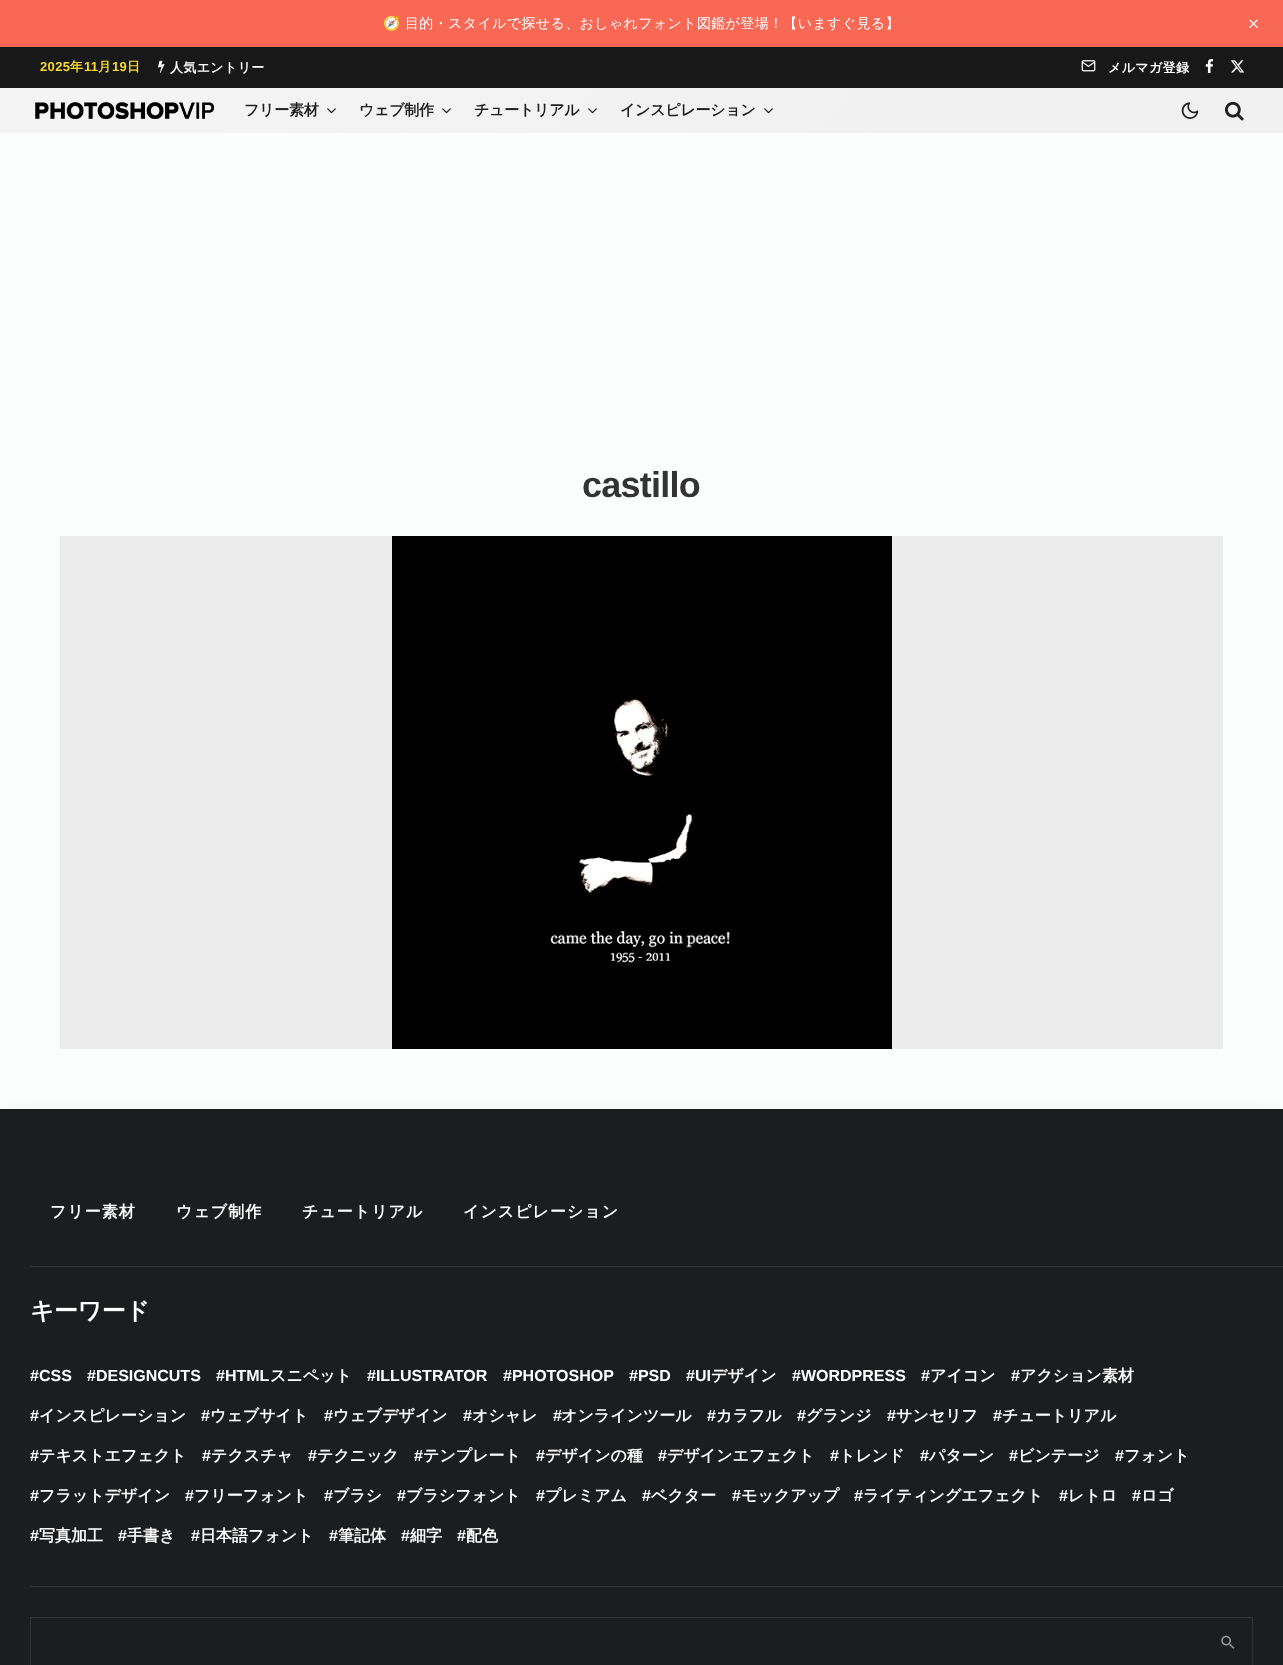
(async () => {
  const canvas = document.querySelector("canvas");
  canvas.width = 1283;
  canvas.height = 1665;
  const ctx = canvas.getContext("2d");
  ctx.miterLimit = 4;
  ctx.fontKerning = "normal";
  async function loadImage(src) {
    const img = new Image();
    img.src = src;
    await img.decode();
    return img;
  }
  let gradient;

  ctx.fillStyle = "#fcfdfd";
  ctx.fillRect(0, 0, 1283, 1665);
  ctx.fillStyle = "#f96854";
  ctx.fillRect(0, 0, 1283, 47);
  ctx.drawImage(await loadImage("img/1.png"), 1249, 19, 9, 9);
  ctx.fillStyle = "#181818";
  ctx.fillRect(0, 47, 1283, 41);
  ctx.drawImage(await loadImage("img/2.png"), 158, 60, 7, 13);
  ctx.drawImage(await loadImage("img/3.png"), 1081, 60, 15, 12);
  ctx.drawImage(await loadImage("img/4.png"), 1205, 59, 9, 14);
  ctx.drawImage(await loadImage("img/5.png"), 1230, 60, 15, 13);
  gradient = ctx.createLinearGradient(254, -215, 1029, 436);
  gradient.addColorStop(0, "#f4f4f4");
  gradient.addColorStop(0.8, "#f1f1f1");
  ctx.fillStyle = gradient;
  ctx.fillRect(0, 88, 1283, 45);
  ctx.drawImage(await loadImage("img/6.png"), 35, 102, 179, 17);
  ctx.drawImage(await loadImage("img/7.png"), 327, 108, 9, 6);
  ctx.drawImage(await loadImage("img/7.png"), 442, 108, 9, 6);
  ctx.drawImage(await loadImage("img/8.png"), 588, 108, 9, 6);
  ctx.drawImage(await loadImage("img/8.png"), 764, 108, 9, 6);
  ctx.drawImage(await loadImage("img/9.png"), 1181, 102, 18, 17);
  ctx.drawImage(await loadImage("img/10.png"), 1225, 101, 19, 20);
  ctx.fillStyle = "#ececec";
  ctx.fillRect(60, 536, 1163, 513);
  ctx.drawImage(await loadImage("img/11.png"), 392, 536, 500, 513);
  ctx.fillStyle = "rgba(20, 20, 20, 0.15)";
  ctx.filter = "blur(13px)";
  ctx.beginPath();
  ctx.rect(4, 1121, 1275, 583);
  ctx.fill();
  ctx.filter = "none";
  for (const [x, y, w, h, color] of [
    [0, 1109, 1283, 556, "#1c1d1e"],
    [30, 1266, 1253, 1, "#333333"],
    [30, 1586, 1253, 1, "#333333"],
  ]) {
    ctx.fillStyle = color;
    ctx.fillRect(x, y, w, h);
  }
  ctx.strokeStyle = "#333333";
  ctx.strokeRect(30.5, 1617.5, 1222, 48);
  ctx.drawImage(await loadImage("img/12.png"), 1221, 1635, 14, 14);
  ctx.letterSpacing = "0.35px";
  ctx.font = "14px Noto Color Emoji";
  ctx.fillStyle = "#ffffff";
  ctx.fillText("🧭", 383, 28);
  ctx.font = "500 14px WenQuanYi Zen Hei";
  ctx.fillText("目的・スタイルで探せる、おしゃれフォント図鑑が登場！【いますぐ見る】", 405, 28);
  ctx.font = "bold 13px Liberation Sans";
  ctx.fillStyle = "#f8d92f";
  ctx.fillText("2025", 40, 71);
  ctx.font = "bold 13px WenQuanYi Zen Hei";
  ctx.fillText("年", 70, 71);
  ctx.font = "bold 13px Liberation Sans";
  ctx.fillText("11", 84, 71);
  ctx.font = "bold 13px WenQuanYi Zen Hei";
  ctx.fillText("月", 98, 71);
  ctx.font = "bold 13px Liberation Sans";
  ctx.fillText("19", 112, 71);
  ctx.font = "bold 13px WenQuanYi Zen Hei";
  ctx.fillText("日", 127, 71);
  ctx.fillStyle = "#ffffff";
  ctx.fillText("人気エントリー", 170, 72);
  ctx.fillText("メルマガ登録", 1108, 72);
  ctx.letterSpacing = "-0.25px";
  ctx.font = "bold 15px WenQuanYi Zen Hei";
  ctx.fillStyle = "#1e1e1e";
  for (const [text, x, y] of [
    ["フリー素材", 244, 115],
    ["ウェブ制作", 359, 115],
    ["チュートリアル", 474, 115],
    ["インスピレーション", 620, 115],
  ]) {
    ctx.fillText(text, x, y);
  }
  ctx.letterSpacing = "-0.75px";
  ctx.font = "bold 36px Liberation Sans";
  ctx.fillStyle = "#333333";
  ctx.fillText("castillo", 582, 497);
  ctx.letterSpacing = "1px";
  ctx.font = "bold 16px WenQuanYi Zen Hei";
  ctx.fillStyle = "#ffffff";
  for (const [text, x, y] of [
    ["フリー素材", 50, 1217],
    ["ウェブ制作", 176, 1217],
    ["チュートリアル", 302, 1217],
    ["インスピレーション", 463, 1217],
  ]) {
    ctx.fillText(text, x, y);
  }
  ctx.letterSpacing = "-0.5px";
  ctx.font = "bold 24px WenQuanYi Zen Hei";
  ctx.fillText("キーワード", 30, 1319);
  ctx.letterSpacing = "0px";
  ctx.font = "bold 16px Liberation Sans";
  for (const [text, x, y] of [
    ["#CSS", 30, 1381],
    ["#DESIGNCUTS", 87, 1381],
    ["#HTML", 216, 1381],
  ]) {
    ctx.fillText(text, x, y);
  }
  ctx.font = "bold 16px WenQuanYi Zen Hei";
  ctx.fillText("スニペット", 270, 1381);
  ctx.font = "bold 16px Liberation Sans";
  for (const [text, x, y] of [
    ["#ILLUSTRATOR", 367, 1381],
    ["#PHOTOSHOP", 503, 1381],
    ["#PSD", 629, 1381],
    ["#UI", 686, 1381],
  ]) {
    ctx.fillText(text, x, y);
  }
  ctx.font = "bold 16px WenQuanYi Zen Hei";
  ctx.fillText("デザイン", 711, 1381);
  ctx.font = "bold 16px Liberation Sans";
  ctx.fillText("#WORDPRESS", 792, 1381);
  ctx.fillText("#", 921, 1381);
  ctx.font = "bold 16px WenQuanYi Zen Hei";
  ctx.fillText("アイコン", 930, 1381);
  ctx.font = "bold 16px Liberation Sans";
  ctx.fillText("#", 1011, 1381);
  ctx.font = "bold 16px WenQuanYi Zen Hei";
  ctx.fillText("アクション素材", 1020, 1381);
  ctx.font = "bold 16px Liberation Sans";
  ctx.fillText("#", 30, 1421);
  ctx.font = "bold 16px WenQuanYi Zen Hei";
  ctx.fillText("インスピレーション", 39, 1421);
  ctx.font = "bold 16px Liberation Sans";
  ctx.fillText("#", 201, 1421);
  ctx.font = "bold 16px WenQuanYi Zen Hei";
  ctx.fillText("ウェブサイト", 210, 1421);
  ctx.font = "bold 16px Liberation Sans";
  ctx.fillText("#", 324, 1421);
  ctx.font = "bold 16px WenQuanYi Zen Hei";
  ctx.fillText("ウェブデザイン", 333, 1421);
  ctx.font = "bold 16px Liberation Sans";
  ctx.fillText("#", 463, 1421);
  ctx.font = "bold 16px WenQuanYi Zen Hei";
  ctx.fillText("オシャレ", 472, 1421);
  ctx.font = "bold 16px Liberation Sans";
  ctx.fillText("#", 553, 1421);
  ctx.font = "bold 16px WenQuanYi Zen Hei";
  ctx.fillText("オンラインツール", 561, 1421);
  ctx.font = "bold 16px Liberation Sans";
  ctx.fillText("#", 707, 1421);
  ctx.font = "bold 16px WenQuanYi Zen Hei";
  ctx.fillText("カラフル", 716, 1421);
  ctx.font = "bold 16px Liberation Sans";
  ctx.fillText("#", 797, 1421);
  ctx.font = "bold 16px WenQuanYi Zen Hei";
  ctx.fillText("グランジ", 806, 1421);
  ctx.font = "bold 16px Liberation Sans";
  ctx.fillText("#", 887, 1421);
  ctx.font = "bold 16px WenQuanYi Zen Hei";
  ctx.fillText("サンセリフ", 896, 1421);
  ctx.font = "bold 16px Liberation Sans";
  ctx.fillText("#", 993, 1421);
  ctx.font = "bold 16px WenQuanYi Zen Hei";
  ctx.fillText("チュートリアル", 1002, 1421);
  ctx.font = "bold 16px Liberation Sans";
  ctx.fillText("#", 30, 1461);
  ctx.font = "bold 16px WenQuanYi Zen Hei";
  ctx.fillText("テキストエフェクト", 39, 1461);
  ctx.font = "bold 16px Liberation Sans";
  ctx.fillText("#", 202, 1461);
  ctx.font = "bold 16px WenQuanYi Zen Hei";
  ctx.fillText("テクスチャ", 211, 1461);
  ctx.font = "bold 16px Liberation Sans";
  ctx.fillText("#", 308, 1461);
  ctx.font = "bold 16px WenQuanYi Zen Hei";
  ctx.fillText("テクニック", 317, 1461);
  ctx.font = "bold 16px Liberation Sans";
  ctx.fillText("#", 414, 1461);
  ctx.font = "bold 16px WenQuanYi Zen Hei";
  ctx.fillText("テンプレート", 423, 1461);
  ctx.font = "bold 16px Liberation Sans";
  ctx.fillText("#", 536, 1461);
  ctx.font = "bold 16px WenQuanYi Zen Hei";
  ctx.fillText("デザインの種", 545, 1461);
  ctx.font = "bold 16px Liberation Sans";
  ctx.fillText("#", 658, 1461);
  ctx.font = "bold 16px WenQuanYi Zen Hei";
  ctx.fillText("デザインエフェクト", 667, 1461);
  ctx.font = "bold 16px Liberation Sans";
  ctx.fillText("#", 830, 1461);
  ctx.font = "bold 16px WenQuanYi Zen Hei";
  ctx.fillText("トレンド", 839, 1461);
  ctx.font = "bold 16px Liberation Sans";
  ctx.fillText("#", 920, 1461);
  ctx.font = "bold 16px WenQuanYi Zen Hei";
  ctx.fillText("パターン", 929, 1461);
  ctx.font = "bold 16px Liberation Sans";
  ctx.fillText("#", 1009, 1461);
  ctx.font = "bold 16px WenQuanYi Zen Hei";
  ctx.fillText("ビンテージ", 1018, 1461);
  ctx.font = "bold 16px Liberation Sans";
  ctx.fillText("#", 1115, 1461);
  ctx.font = "bold 16px WenQuanYi Zen Hei";
  ctx.fillText("フォント", 1124, 1461);
  ctx.font = "bold 16px Liberation Sans";
  ctx.fillText("#", 30, 1501);
  ctx.font = "bold 16px WenQuanYi Zen Hei";
  ctx.fillText("フラットデザイン", 39, 1501);
  ctx.font = "bold 16px Liberation Sans";
  ctx.fillText("#", 185, 1501);
  ctx.font = "bold 16px WenQuanYi Zen Hei";
  ctx.fillText("フリーフォント", 194, 1501);
  ctx.font = "bold 16px Liberation Sans";
  ctx.fillText("#", 324, 1501);
  ctx.font = "bold 16px WenQuanYi Zen Hei";
  ctx.fillText("ブラシ", 333, 1501);
  ctx.font = "bold 16px Liberation Sans";
  ctx.fillText("#", 397, 1501);
  ctx.font = "bold 16px WenQuanYi Zen Hei";
  ctx.fillText("ブラシフォント", 406, 1501);
  ctx.font = "bold 16px Liberation Sans";
  ctx.fillText("#", 536, 1501);
  ctx.font = "bold 16px WenQuanYi Zen Hei";
  ctx.fillText("プレミアム", 545, 1501);
  ctx.font = "bold 16px Liberation Sans";
  ctx.fillText("#", 642, 1501);
  ctx.font = "bold 16px WenQuanYi Zen Hei";
  ctx.fillText("ベクター", 651, 1501);
  ctx.font = "bold 16px Liberation Sans";
  ctx.fillText("#", 732, 1501);
  ctx.font = "bold 16px WenQuanYi Zen Hei";
  ctx.fillText("モックアップ", 741, 1501);
  ctx.font = "bold 16px Liberation Sans";
  ctx.fillText("#", 854, 1501);
  ctx.font = "bold 16px WenQuanYi Zen Hei";
  ctx.fillText("ライティングエフェクト", 863, 1501);
  ctx.font = "bold 16px Liberation Sans";
  ctx.fillText("#", 1059, 1501);
  ctx.font = "bold 16px WenQuanYi Zen Hei";
  ctx.fillText("レトロ", 1068, 1501);
  ctx.font = "bold 16px Liberation Sans";
  ctx.fillText("#", 1132, 1501);
  ctx.font = "bold 16px WenQuanYi Zen Hei";
  ctx.fillText("ロゴ", 1141, 1501);
  ctx.font = "bold 16px Liberation Sans";
  ctx.fillText("#", 30, 1541);
  ctx.font = "bold 16px WenQuanYi Zen Hei";
  ctx.fillText("写真加工", 39, 1541);
  ctx.font = "bold 16px Liberation Sans";
  ctx.fillText("#", 118, 1541);
  ctx.font = "bold 16px WenQuanYi Zen Hei";
  ctx.fillText("手書き", 127, 1541);
  ctx.font = "bold 16px Liberation Sans";
  ctx.fillText("#", 191, 1541);
  ctx.font = "bold 16px WenQuanYi Zen Hei";
  ctx.fillText("日本語フォント", 200, 1541);
  ctx.font = "bold 16px Liberation Sans";
  ctx.fillText("#", 329, 1541);
  ctx.font = "bold 16px WenQuanYi Zen Hei";
  ctx.fillText("筆記体", 338, 1541);
  ctx.font = "bold 16px Liberation Sans";
  ctx.fillText("#", 401, 1541);
  ctx.font = "bold 16px WenQuanYi Zen Hei";
  ctx.fillText("細字", 410, 1541);
  ctx.font = "bold 16px Liberation Sans";
  ctx.fillText("#", 457, 1541);
  ctx.font = "bold 16px WenQuanYi Zen Hei";
  ctx.fillText("配色", 466, 1541);
})();
